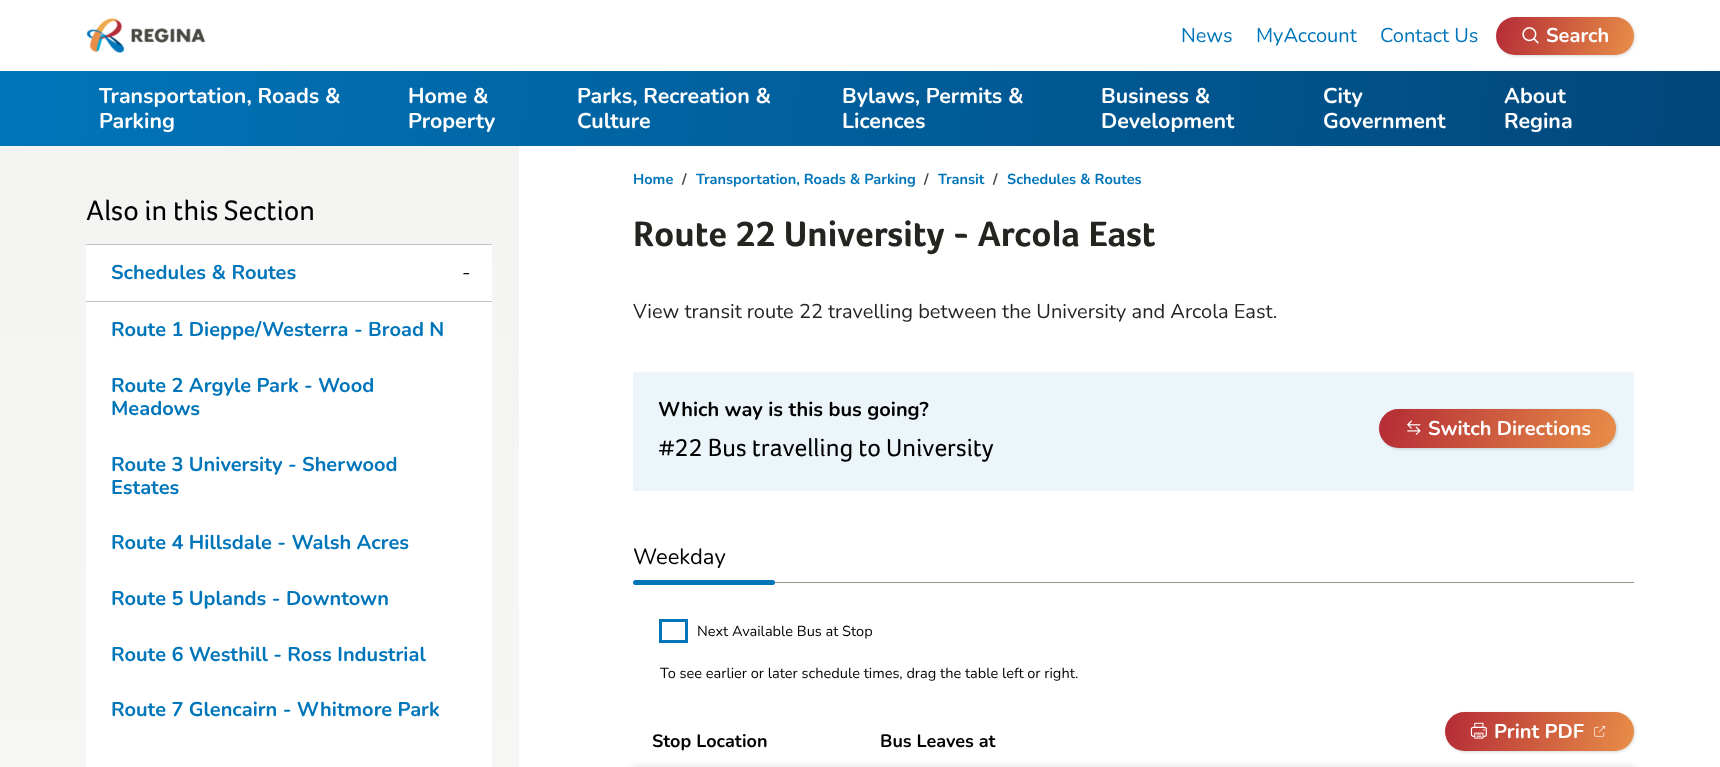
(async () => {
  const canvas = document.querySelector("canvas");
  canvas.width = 1720;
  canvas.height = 767;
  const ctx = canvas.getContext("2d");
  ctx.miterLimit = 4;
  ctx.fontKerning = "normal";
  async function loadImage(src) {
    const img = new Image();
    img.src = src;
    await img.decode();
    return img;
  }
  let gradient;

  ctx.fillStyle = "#ffffff";
  ctx.fillRect(0, 0, 1720, 767);
  ctx.drawImage(await loadImage("img/1.png"), 86, 18, 120, 35);
  ctx.fillStyle = "rgba(0, 0, 0, 0.16)";
  ctx.filter = "blur(1.5px)";
  ctx.beginPath();
  ctx.roundRect(1497, 18, 138, 38, 19);
  ctx.fill();
  ctx.filter = "none";
  gradient = ctx.createLinearGradient(1496, 17, 1634, 55);
  gradient.addColorStop(0, "#b42b36");
  gradient.addColorStop(1, "#e88e48");
  ctx.fillStyle = gradient;
  ctx.beginPath();
  ctx.roundRect(1496, 17, 138, 38, 19);
  ctx.fill();
  ctx.drawImage(await loadImage("img/2.png"), 1522, 27, 17, 17);
  gradient = ctx.createLinearGradient(0.4, 63, 1720, 154);
  gradient.addColorStop(0, "#0175ba");
  gradient.addColorStop(1, "#01477b");
  ctx.fillStyle = gradient;
  ctx.fillRect(0, 71, 1720, 75);
  gradient = ctx.createLinearGradient(430, 71, 430, 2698);
  gradient.addColorStop(0, "#f3f3f1");
  gradient.addColorStop(1, "#ffffff");
  ctx.fillStyle = gradient;
  ctx.fillRect(0, 146, 519, 621);
  for (const [x, y, w, h, color] of [
    [86, 244, 406, 1, "#c3c3c3"],
    [86, 245, 406, 522, "#ffffff"],
    [86, 301, 406, 1, "#c3c3c3"],
    [633, 372, 1001, 119, "#ecf5fa"],
  ]) {
    ctx.fillStyle = color;
    ctx.fillRect(x, y, w, h);
  }
  ctx.fillStyle = "rgba(0, 0, 0, 0.16)";
  ctx.filter = "blur(1.5px)";
  ctx.beginPath();
  ctx.roundRect(1380, 410, 237, 39, 19.5);
  ctx.fill();
  ctx.filter = "none";
  gradient = ctx.createLinearGradient(1382, 397, 1613, 459);
  gradient.addColorStop(0, "#b42b36");
  gradient.addColorStop(1, "#e88e48");
  ctx.fillStyle = gradient;
  ctx.beginPath();
  ctx.roundRect(1379, 409, 237, 39, 19.5);
  ctx.fill();
  ctx.drawImage(await loadImage("img/3.png"), 1407, 420, 14, 15);
  ctx.fillStyle = "#959486";
  ctx.fillRect(633, 582, 1001, 1);
  ctx.fillStyle = "#0075ba";
  ctx.beginPath();
  ctx.roundRect(633, 580, 142, 5, 2.5);
  ctx.fill();
  ctx.strokeStyle = "#0075ba";
  ctx.lineWidth = 3;
  ctx.strokeRect(660.5, 620.5, 26, 21);
  ctx.fillStyle = "rgba(0, 0, 0, 0.16)";
  ctx.filter = "blur(1.5px)";
  ctx.beginPath();
  ctx.roundRect(1446, 713, 189, 39, 19.5);
  ctx.fill();
  ctx.filter = "none";
  gradient = ctx.createLinearGradient(1446, 707, 1633, 756);
  gradient.addColorStop(0, "#b42b36");
  gradient.addColorStop(1, "#e88e48");
  ctx.fillStyle = gradient;
  ctx.beginPath();
  ctx.roundRect(1445, 712, 189, 39, 19.5);
  ctx.fill();
  ctx.drawImage(await loadImage("img/4.png"), 1470, 722, 17, 17);
  ctx.drawImage(await loadImage("img/5.png"), 1594, 725, 12, 12);
  ctx.fillStyle = "rgba(0, 0, 0, 0.16)";
  ctx.filter = "blur(5px)";
  ctx.beginPath();
  ctx.rect(634, 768, 1001, 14);
  ctx.fill();
  ctx.filter = "none";
  ctx.font = "20px Nunito";
  ctx.fillStyle = "#0075ba";
  for (const [text, x, y] of [
    ["News", 1181, 42],
    ["MyAccount", 1256, 42],
    ["Contact Us", 1380, 42],
  ]) {
    ctx.fillText(text, x, y);
  }
  ctx.font = "bold 20px Nunito";
  ctx.fillStyle = "#ffffff";
  ctx.fillText("Search", 1546, 42);
  ctx.font = "bold 21.4px Nunito";
  for (const [text, x, y] of [
    ["Transportation, Roads &", 99, 103],
    ["Parking", 99, 128],
    ["Home &", 408, 103],
    ["Property", 408, 128],
    ["Parks, Recreation &", 577, 103],
    ["Culture", 577, 128],
    ["Bylaws, Permits &", 842, 103],
    ["Licences", 842, 128],
    ["Business &", 1101, 103],
    ["Development", 1101, 128],
    ["City", 1323, 103],
    ["Government", 1323, 128],
    ["About", 1504, 103],
    ["Regina", 1504, 128],
  ]) {
    ctx.fillText(text, x, y);
  }
  ctx.font = "29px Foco";
  ctx.fillStyle = "#000000";
  ctx.fillText("Also in this Section", 86, 220);
  ctx.font = "bold 20px Nunito";
  ctx.fillStyle = "#0075ba";
  ctx.fillText("Schedules & Routes", 111, 279);
  ctx.font = "20px Nunito";
  ctx.fillStyle = "#000000";
  ctx.fillText("-", 462, 279);
  ctx.font = "bold 20px Nunito";
  ctx.fillStyle = "#0075ba";
  for (const [text, x, y] of [
    ["Route 1 Dieppe/Westerra - Broad N", 111, 336],
    ["Route 2 Argyle Park - Wood", 111, 392],
    ["Meadows", 111, 415],
    ["Route 3 University - Sherwood", 111, 471],
    ["Estates", 111, 494],
    ["Route 4 Hillsdale - Walsh Acres", 111, 549],
    ["Route 5 Uplands - Downtown", 111, 605],
    ["Route 6 Westhill - Ross Industrial", 111, 661],
    ["Route 7 Glencairn - Whitmore Park", 111, 716],
  ]) {
    ctx.fillText(text, x, y);
  }
  ctx.font = "bold 14.55px Nunito";
  ctx.fillText("Home", 633, 184);
  ctx.fillStyle = "#494942";
  ctx.fillText("/", 682, 184);
  ctx.fillStyle = "#0075ba";
  ctx.fillText("Transportation, Roads & Parking", 696, 184);
  ctx.fillStyle = "#494942";
  ctx.fillText("/", 924, 184);
  ctx.fillStyle = "#0075ba";
  ctx.fillText("Transit", 938, 184);
  ctx.fillStyle = "#494942";
  ctx.fillText("/", 993, 184);
  ctx.fillStyle = "#0075ba";
  ctx.fillText("Schedules & Routes", 1007, 184);
  ctx.font = "bold 36.4px Foco";
  ctx.fillStyle = "#242420";
  ctx.fillText("Route 22 University - Arcola East", 633, 246);
  ctx.font = "20px Nunito";
  ctx.fillText("View transit route 22 travelling between the University and Arcola East.", 633, 318);
  ctx.font = "bold 20px Nunito";
  ctx.fillStyle = "#000000";
  ctx.fillText("Which way is this bus going?", 658, 416);
  ctx.font = "25.5px Foco";
  ctx.fillText("#22 Bus travelling to University", 658, 456);
  ctx.font = "bold 20px Nunito";
  ctx.fillStyle = "#ffffff";
  ctx.fillText("Switch Directions", 1428, 435);
  ctx.font = "22px Nunito";
  ctx.fillStyle = "#000000";
  ctx.fillText("Weekday", 633, 564);
  ctx.font = "14.55px Nunito";
  ctx.fillText("Next Available Bus at Stop", 697, 636);
  ctx.fillText("To see earlier or later schedule times, drag the table left or right.", 660, 678);
  ctx.font = "bold 20px Nunito";
  ctx.fillStyle = "#ffffff";
  ctx.fillText("Print PDF", 1494, 738);
  ctx.font = "bold 18px Nunito";
  ctx.fillStyle = "#000000";
  ctx.fillText("Stop Location", 652, 747);
  ctx.fillText("Bus Leaves at", 880, 747);
})();
